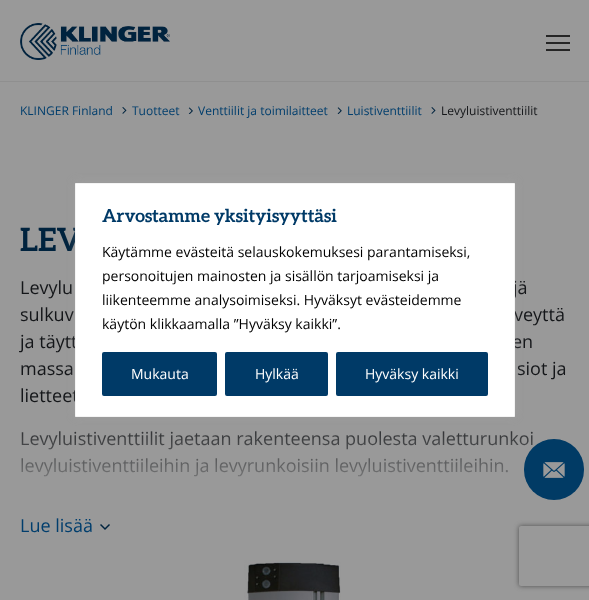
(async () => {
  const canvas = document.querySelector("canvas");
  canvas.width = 589;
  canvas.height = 600;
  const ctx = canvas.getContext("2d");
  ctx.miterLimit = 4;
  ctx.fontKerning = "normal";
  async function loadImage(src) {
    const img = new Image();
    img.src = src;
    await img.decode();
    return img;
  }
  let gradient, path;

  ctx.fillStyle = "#999999";
  ctx.fillRect(0, 0, 589, 600);
  ctx.drawImage(await loadImage("img/1.png"), 20, 23, 150, 37);
  for (const [x, y, w, h, color] of [
    [546, 35, 24, 2, "#252525"],
    [546, 42, 24, 2, "#252525"],
    [546, 49, 24, 2, "#252525"],
    [0, 81, 589, 1, "#8f8f8f"],
  ]) {
    ctx.fillStyle = color;
    ctx.fillRect(x, y, w, h);
  }
  ctx.drawImage(await loadImage("img/2.png"), 122, 107, 5, 7);
  ctx.drawImage(await loadImage("img/3.png"), 188, 107, 5, 7);
  ctx.drawImage(await loadImage("img/4.png"), 337, 107, 5, 7);
  ctx.drawImage(await loadImage("img/5.png"), 431, 107, 5, 7);
  ctx.drawImage(await loadImage("img/6.png"), 100, 524, 10, 6);
  ctx.drawImage(await loadImage("img/7.png"), 244, 560, 97, 40);
  ctx.save();
  path = new Path2D("M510 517H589V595H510ZM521 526H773C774 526 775 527 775 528V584C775 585 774 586 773 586H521C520 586 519 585 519 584V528C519 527 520 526 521 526Z");
  ctx.clip(path, "evenodd");
  ctx.fillStyle = "#4d4d4d";
  ctx.filter = "blur(2.5px)";
  ctx.beginPath();
  ctx.roundRect(519, 526, 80, 60, 2);
  ctx.fill();
  ctx.filter = "none";
  ctx.restore();
  ctx.font = "12px Open Sans";
  ctx.fillStyle = "#013e6d";
  for (const [text, x, y] of [
    ["KLINGER Finland", 20, 115],
    ["Tuotteet", 132, 115],
    ["Venttiilit ja toimilaitteet", 198, 115],
    ["Luistiventtiilit", 347, 115],
  ]) {
    ctx.fillText(text, x, y);
  }
  ctx.fillStyle = "#141619";
  ctx.fillText("Levyluistiventtiilit", 441, 115);
  ctx.font = "bold 32px Aleo";
  ctx.fillStyle = "#00233e";
  ctx.fillText("LEV", 20, 251);
  ctx.font = "18px Open Sans";
  ctx.fillStyle = "#141619";
  for (const [text, x, y] of [
    ["Levylu", 20, 294],
    ["jä", 513, 294],
    ["sulkuv", 20, 321],
    ["veyttä", 514, 321],
    ["ja täytt", 20, 348],
    ["en", 512, 348],
    ["massa", 20, 375],
    ["siot ja", 517, 375],
    ["lietteet", 20, 402],
    ["Levyluistiventtiilit jaetaan rakenteensa puolesta valetturunkoi", 20, 445],
    ["levyluistiventtiileihin ja levyrunkoisiin levyluistiventtiileihin.", 20, 472],
  ]) {
    ctx.fillText(text, x, y);
  }
  gradient = ctx.createLinearGradient(295, 374, 295, 504);
  gradient.addColorStop(0.28, "rgba(153, 153, 153, 0)");
  gradient.addColorStop(1, "#999999");
  ctx.fillStyle = gradient;
  ctx.fillRect(21, 431, 512, 46);
  ctx.fillStyle = "#013e6d";
  ctx.fillText("Lue lisää", 20, 532);
  ctx.fillStyle = "#013b65";
  ctx.beginPath();
  ctx.roundRect(524, 439, 60, 61, 30);
  ctx.fill();
  ctx.drawImage(await loadImage("img/8.png"), 543, 462, 22, 16);
  ctx.fillStyle = "rgba(172, 171, 171, 0.3)";
  ctx.filter = "blur(5px)";
  ctx.beginPath();
  ctx.rect(75, 182, 440, 234);
  ctx.fill();
  ctx.filter = "none";
  ctx.fillStyle = "#ffffff";
  ctx.beginPath();
  ctx.rect(75.5, 183.5, 439, 233);
  ctx.fill();
  ctx.strokeStyle = "#f4f4f4";
  ctx.stroke();
  ctx.font = "bold 18px Aleo";
  ctx.fillStyle = "#003a67";
  ctx.fillText("Arvostamme yksityisyyttäsi", 102, 222);
  ctx.font = "14px Open Sans";
  ctx.fillStyle = "#000000";
  for (const [text, x, y] of [
    ["Käytämme evästeitä selauskokemuksesi parantamiseksi,", 102, 257],
    ["personoitujen mainosten ja sisällön tarjoamiseksi ja", 102, 281],
    ["liikenteemme analysoimiseksi. Hyväksyt evästeidemme", 102, 305],
    ["käytön klikkaamalla ”Hyväksy kaikki”.", 102, 329],
  ]) {
    ctx.fillText(text, x, y);
  }
  ctx.fillStyle = "#003a67";
  ctx.beginPath();
  ctx.roundRect(103, 353, 113, 42, 1);
  ctx.fill();
  ctx.strokeStyle = "#003a67";
  ctx.lineWidth = 2;
  ctx.stroke();
  ctx.fillStyle = "#ffffff";
  ctx.fillText("Mukauta", 131, 379);
  ctx.fillStyle = "#003a67";
  ctx.beginPath();
  ctx.roundRect(226, 353, 101, 42, 1);
  ctx.fill();
  ctx.stroke();
  ctx.fillStyle = "#ffffff";
  ctx.fillText("Hylkää", 255, 379);
  ctx.fillStyle = "#003a67";
  ctx.beginPath();
  ctx.roundRect(337, 353, 150, 42, 1);
  ctx.fill();
  ctx.stroke();
  ctx.fillStyle = "#ffffff";
  ctx.fillText("Hyväksy kaikki", 365, 379);
})();
